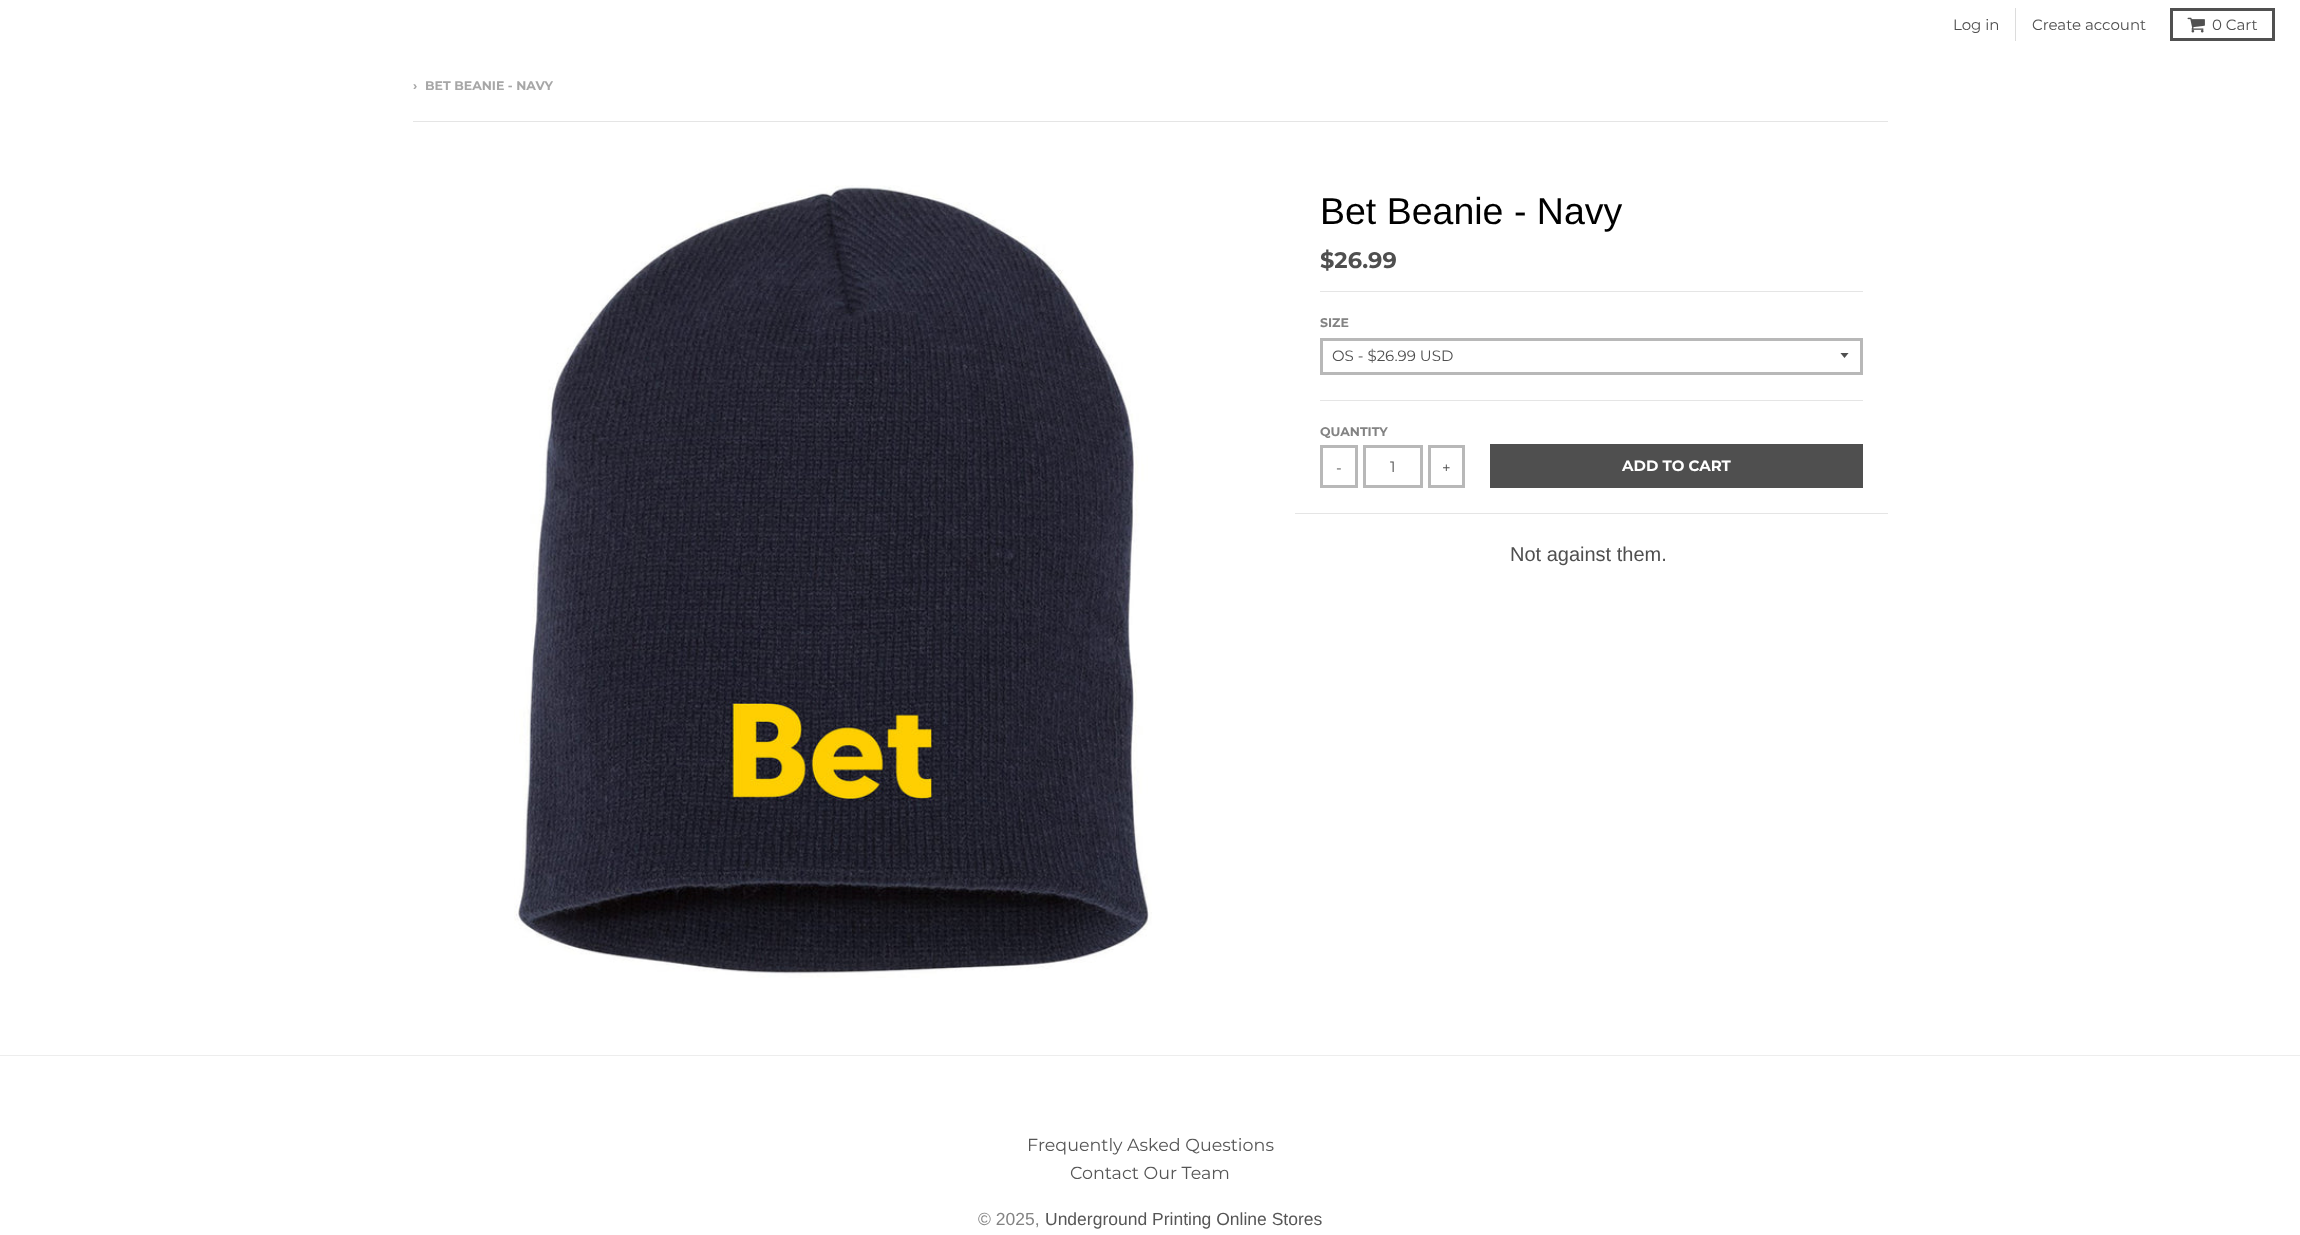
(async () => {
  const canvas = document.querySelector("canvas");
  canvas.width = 2300;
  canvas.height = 1235;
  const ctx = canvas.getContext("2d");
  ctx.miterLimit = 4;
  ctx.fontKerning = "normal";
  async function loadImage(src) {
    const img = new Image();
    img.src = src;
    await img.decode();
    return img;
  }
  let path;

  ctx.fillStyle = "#ffffff";
  ctx.fillRect(0, 0, 2300, 1235);
  ctx.fillStyle = "#dcdcdc";
  ctx.fillRect(2015, 8, 1, 33);
  ctx.strokeStyle = "#505050";
  ctx.lineWidth = 3;
  ctx.strokeRect(2171.5, 9.5, 102, 30);
  ctx.drawImage(await loadImage("img/1.png"), 2187, 17, 18, 16);
  ctx.fillStyle = "#ededed";
  ctx.fillRect(0, 1055, 2300, 1);
  ctx.fillStyle = "#e5e5e5";
  ctx.fillRect(413, 121, 1475, 1);
  ctx.drawImage(await loadImage("img/2.png"), 514, 185, 638, 793);
  for (const [x, y, w, h, color] of [
    [1295, 513, 593, 1, "#e5e5e5"],
    [1320, 291, 543, 1, "#e5e5e5"],
    [1320, 400, 543, 1, "#e5e5e5"],
  ]) {
    ctx.fillStyle = color;
    ctx.fillRect(x, y, w, h);
  }
  ctx.save();
  ctx.beginPath();
  ctx.rect(1840, 353, 10, 6);
  ctx.clip();
  ctx.fillStyle = "#4f4f4f";
  path = new Path2D("M1840 352.5L1844.5 358L1849 352.5Z");
  ctx.fill(path);
  ctx.restore();
  ctx.strokeStyle = "#b8b8b8";
  ctx.strokeRect(1321.5, 339.5, 540, 34);
  ctx.strokeRect(1321.5, 446.5, 35, 40);
  ctx.strokeRect(1364.5, 446.5, 57, 40);
  ctx.strokeRect(1429.5, 446.5, 34, 40);
  ctx.fillStyle = "#4f4f4f";
  ctx.fillRect(1490, 444, 373, 44);
  ctx.font = "15px Montserrat";
  for (const [text, x, y] of [
    ["Log in", 1953, 30],
    ["Create account", 2032, 30],
    ["0 Cart", 2212, 30],
  ]) {
    ctx.fillText(text, x, y);
  }
  ctx.font = "bold 12.5px Montserrat";
  ctx.fillStyle = "#a7a7a7";
  ctx.fillText("›", 413, 90);
  ctx.fillText("BET BEANIE - NAVY", 425, 90);
  ctx.font = "37.5px Liberation Sans";
  ctx.fillStyle = "#000000";
  ctx.fillText("Bet Beanie - Navy", 1320, 224);
  ctx.font = "bold 22.5px Montserrat";
  ctx.fillStyle = "#4f4f4f";
  ctx.fillText("$26.99", 1320, 268);
  ctx.font = "bold 12.5px Montserrat";
  ctx.fillStyle = "#838383";
  ctx.fillText("SIZE", 1320, 327);
  ctx.font = "15px Montserrat";
  ctx.fillStyle = "#4f4f4f";
  ctx.fillText("OS - $26.99 USD", 1332, 361);
  ctx.font = "bold 12.5px Montserrat";
  ctx.fillStyle = "#838383";
  ctx.fillText("QUANTITY", 1320, 436);
  ctx.font = "15px Montserrat";
  ctx.fillStyle = "#4f4f4f";
  for (const [text, x, y] of [
    ["-", 1336, 473],
    ["1", 1390, 472],
    ["+", 1442, 473],
  ]) {
    ctx.fillText(text, x, y);
  }
  ctx.font = "bold 15px Montserrat";
  ctx.fillStyle = "#ffffff";
  ctx.fillText("ADD TO CART", 1622, 471);
  ctx.font = "20px Liberation Sans";
  ctx.fillStyle = "#4f4f4f";
  ctx.fillText("Not against them.", 1510, 561);
  ctx.font = "17.5px Montserrat";
  ctx.fillStyle = "#565656";
  ctx.fillText("Frequently Asked Questions", 1027, 1151);
  ctx.fillText("Contact Our Team", 1070, 1179);
  ctx.font = "17.5px Liberation Sans";
  ctx.fillStyle = "#838383";
  ctx.fillText("© 2025,", 978, 1225);
  ctx.fillStyle = "#565656";
  ctx.fillText("Underground Printing Online Stores", 1045, 1225);
})();
